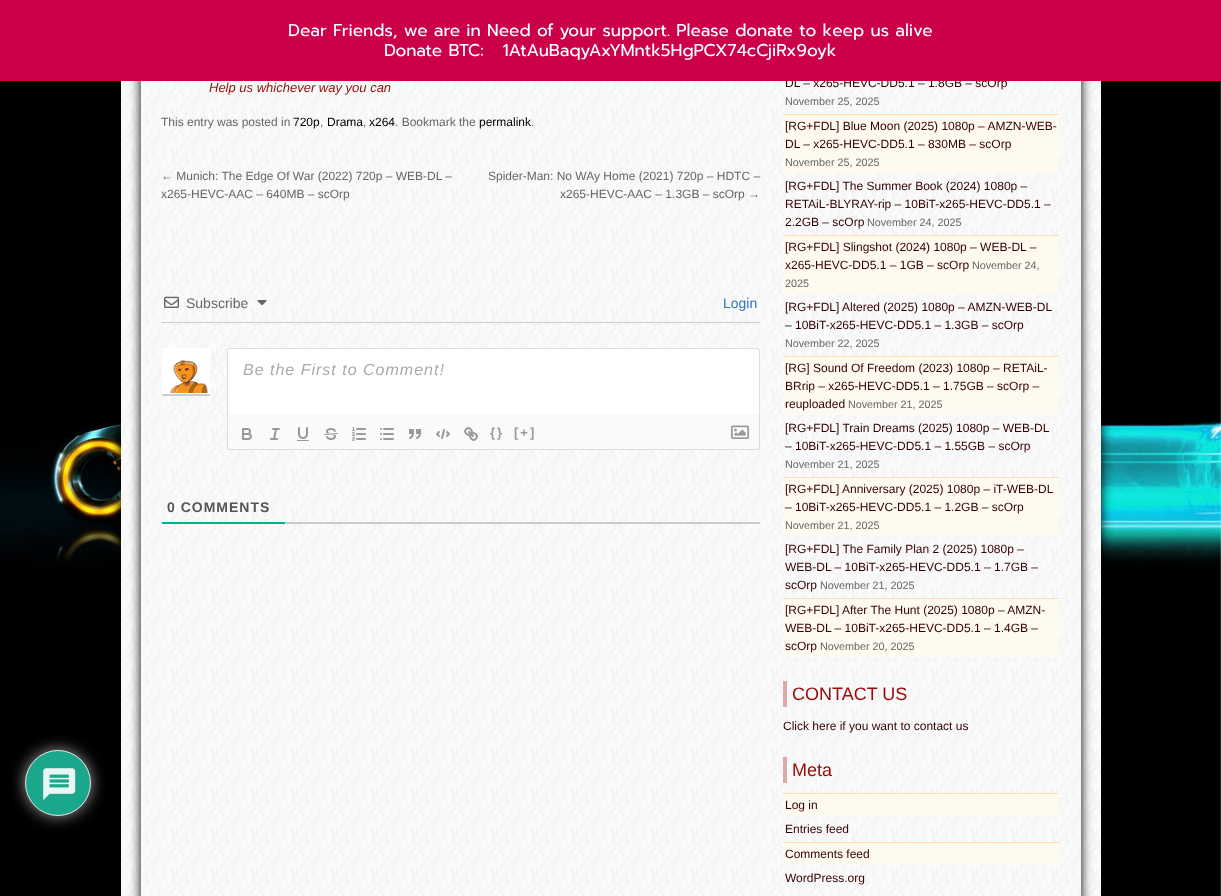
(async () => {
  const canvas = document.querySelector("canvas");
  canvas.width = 1221;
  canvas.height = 896;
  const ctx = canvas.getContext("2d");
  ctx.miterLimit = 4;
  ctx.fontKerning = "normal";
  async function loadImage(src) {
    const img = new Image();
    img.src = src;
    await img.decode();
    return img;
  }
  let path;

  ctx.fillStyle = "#ffffff";
  ctx.fillRect(0, 0, 1221, 896);
  ctx.drawImage(await loadImage("img/1.png"), 0, 81, 1221, 815);
  ctx.fillStyle = "#999999";
  ctx.filter = "blur(7.5px)";
  ctx.beginPath();
  ctx.roundRect(25, 750, 66, 66, 33);
  ctx.fill();
  ctx.filter = "none";
  ctx.fillStyle = "#1aa78b";
  ctx.beginPath();
  ctx.arc(58, 783, 32.5, 0, Math.PI * 2);
  ctx.fill();
  ctx.strokeStyle = "#e6e6e6";
  ctx.stroke();
  ctx.drawImage(await loadImage("img/2.png"), 43, 768, 33, 32);
  ctx.fillStyle = "#000000";
  ctx.filter = "blur(6px)";
  ctx.beginPath();
  ctx.rect(121, -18, 980, 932);
  ctx.fill();
  ctx.filter = "none";
  ctx.drawImage(await loadImage("img/3.png"), 121, 81, 980, 815);
  ctx.save();
  path = new Path2D("M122 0H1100V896H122ZM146-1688H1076C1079-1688 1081-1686 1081-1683V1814C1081 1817 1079 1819 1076 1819H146C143 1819 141 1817 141 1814V-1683C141-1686 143-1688 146-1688Z");
  ctx.clip(path, "evenodd");
  ctx.filter = "blur(6px)";
  ctx.beginPath();
  ctx.roundRect(141, -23, 940, 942, 5);
  ctx.fill();
  ctx.filter = "none";
  ctx.restore();
  ctx.fillStyle = "#cccccc";
  ctx.fillRect(162, 322, 598, 1);
  ctx.drawImage(await loadImage("img/4.png"), 164, 296, 15, 12);
  ctx.drawImage(await loadImage("img/5.png"), 257, 300, 10, 6);
  ctx.fillStyle = "#ffffff";
  ctx.fillRect(162, 348, 48, 46);
  ctx.drawImage(await loadImage("img/6.png"), 170, 360, 38, 33);
  ctx.fillStyle = "#cccccc";
  ctx.fillRect(162, 394, 48, 2);
  ctx.fillStyle = "#ffffff";
  ctx.beginPath();
  ctx.roundRect(227, 348, 533, 66, [3, 3, 0, 0]);
  ctx.fill();
  ctx.fillStyle = "#dddddd";
  path = new Path2D("M230 348H757C759 348 760 349 760 351V414H227V351C227 349 228 348 230 348ZM230 349H757C758 349 759 350 759 351V414H228V351C228 350 229 349 230 349Z");
  ctx.fill(path, "evenodd");
  ctx.fillStyle = "#fafafa";
  ctx.beginPath();
  ctx.roundRect(227, 414, 533, 36, [0, 0, 3, 3]);
  ctx.fill();
  ctx.fillStyle = "#dddddd";
  path = new Path2D("M227 414H760V447C760 449 759 450 757 450H230C228 450 227 449 227 447ZM228 414H759V447C759 448 758 449 757 449H230C229 449 228 448 228 447Z");
  ctx.fill(path, "evenodd");
  ctx.drawImage(await loadImage("img/7.png"), 242, 428, 10, 12);
  ctx.drawImage(await loadImage("img/8.png"), 270, 428, 10, 12);
  ctx.drawImage(await loadImage("img/9.png"), 297, 427, 12, 14);
  ctx.drawImage(await loadImage("img/10.png"), 324, 428, 14, 12);
  ctx.drawImage(await loadImage("img/11.png"), 352, 427, 14, 14);
  ctx.drawImage(await loadImage("img/12.png"), 380, 428, 14, 12);
  ctx.drawImage(await loadImage("img/13.png"), 409, 429, 12, 10);
  ctx.drawImage(await loadImage("img/14.png"), 436, 429, 14, 10);
  ctx.drawImage(await loadImage("img/15.png"), 464, 427, 14, 14);
  ctx.drawImage(await loadImage("img/16.png"), 731, 425, 18, 14);
  for (const [x, y, w, h, color] of [
    [285, 522, 475, 2, "#cccccc"],
    [162, 522, 123, 2, "#00b38f"],
    [783, 115, 276, 58, "#fffaf0"],
    [783, 114, 276, 1, "#ffdead"],
    [783, 236, 276, 58, "#fffaf0"],
    [783, 235, 276, 1, "#ffdead"],
    [783, 357, 276, 58, "#fffaf0"],
    [783, 356, 276, 1, "#ffdead"],
    [783, 478, 276, 58, "#fffaf0"],
    [783, 477, 276, 1, "#ffdead"],
    [783, 599, 276, 58, "#fffaf0"],
    [783, 598, 276, 1, "#ffdead"],
    [783, 681, 4, 26, "#ddaaaa"],
    [783, 757, 4, 26, "#ddaaaa"],
    [783, 794, 276, 22, "#fffaf0"],
    [783, 793, 276, 1, "#ffdead"],
    [783, 843, 276, 22, "#fffaf0"],
    [783, 842, 276, 1, "#ffdead"],
  ]) {
    ctx.fillStyle = color;
    ctx.fillRect(x, y, w, h);
  }
  ctx.font = "italic 13px Liberation Sans";
  ctx.fillStyle = "#99090a";
  ctx.fillText("Help us whichever way you can", 209, 92);
  ctx.font = "12px Liberation Sans";
  ctx.fillStyle = "#666666";
  ctx.fillText("This entry was posted in", 161, 126);
  ctx.fillStyle = "#000000";
  ctx.fillText("720p", 293, 126);
  ctx.fillStyle = "#666666";
  ctx.fillText(",", 320, 126);
  ctx.fillStyle = "#000000";
  ctx.fillText("Drama", 327, 126);
  ctx.fillStyle = "#666666";
  ctx.fillText(",", 363, 126);
  ctx.fillStyle = "#000000";
  ctx.fillText("x264", 369, 126);
  ctx.fillStyle = "#666666";
  ctx.fillText(". Bookmark the", 395, 126);
  ctx.fillStyle = "#000000";
  ctx.fillText("permalink", 479, 126);
  ctx.fillStyle = "#666666";
  for (const [text, x, y] of [
    [".", 531, 126],
    ["← Munich: The Edge Of War (2022) 720p – WEB-DL –", 161, 180],
    ["x265-HEVC-AAC – 640MB – scOrp", 161, 198],
    ["Spider-Man: No WAy Home (2021) 720p – HDTC –", 488, 180],
    ["x265-HEVC-AAC – 1.3GB – scOrp →", 560, 198],
  ]) {
    ctx.fillText(text, x, y);
  }
  ctx.font = "14px Liberation Sans";
  ctx.fillText("Subscribe", 186, 308);
  ctx.fillStyle = "#3272bf";
  ctx.fillText("Login", 723, 308);
  ctx.letterSpacing = "1px";
  ctx.font = "italic 16px Liberation Sans";
  ctx.fillStyle = "#aaaaaa";
  ctx.fillText("Be the First to Comment!", 243, 375);
  ctx.letterSpacing = "2px";
  ctx.font = "bold 13px Liberation Sans";
  ctx.fillStyle = "#999999";
  ctx.fillText("{}", 490, 437);
  ctx.fillText("[+]", 514, 437);
  ctx.letterSpacing = "1px";
  ctx.font = "bold 14px Liberation Sans";
  ctx.fillStyle = "#555555";
  ctx.fillText("0 COMMENTS", 167, 512);
  ctx.letterSpacing = "0px";
  ctx.font = "12px Liberation Sans";
  ctx.fillStyle = "#330000";
  ctx.fillText("DL – x265-HEVC-DD5.1 – 1.8GB – scOrp", 785, 87);
  ctx.fillStyle = "#cc004a";
  ctx.fillRect(0, 0, 1221, 81);
  ctx.font = "17px Prompt";
  ctx.fillStyle = "#ffffff";
  ctx.fillText("Donate BTC:   1AtAuBaqyAxYMntk5HgPCX74cCjiRx9oyk", 384, 56);
  ctx.fillText("Dear Friends, we are in Need of your support. Please donate to keep us alive", 288, 36);
  ctx.font = "10.75px Liberation Sans";
  ctx.fillStyle = "#666666";
  ctx.fillText("November 25, 2025", 785, 105);
  ctx.font = "12px Liberation Sans";
  ctx.fillStyle = "#330000";
  ctx.fillText("[RG+FDL] Blue Moon (2025) 1080p – AMZN-WEB-", 785, 130);
  ctx.fillText("DL – x265-HEVC-DD5.1 – 830MB – scOrp", 785, 148);
  ctx.font = "10.75px Liberation Sans";
  ctx.fillStyle = "#666666";
  ctx.fillText("November 25, 2025", 785, 166);
  ctx.font = "12px Liberation Sans";
  ctx.fillStyle = "#330000";
  for (const [text, x, y] of [
    ["[RG+FDL] The Summer Book (2024) 1080p –", 785, 190],
    ["RETAiL-BLYRAY-rip – 10BiT-x265-HEVC-DD5.1 –", 785, 208],
    ["2.2GB – scOrp", 785, 226],
  ]) {
    ctx.fillText(text, x, y);
  }
  ctx.font = "10.75px Liberation Sans";
  ctx.fillStyle = "#666666";
  ctx.fillText("November 24, 2025", 867, 226);
  ctx.font = "12px Liberation Sans";
  ctx.fillStyle = "#330000";
  ctx.fillText("[RG+FDL] Slingshot (2024) 1080p – WEB-DL –", 785, 251);
  ctx.fillText("x265-HEVC-DD5.1 – 1GB – scOrp", 785, 269);
  ctx.font = "10.75px Liberation Sans";
  ctx.fillStyle = "#666666";
  ctx.fillText("November 24,", 972, 269);
  ctx.fillText("2025", 785, 287);
  ctx.font = "12px Liberation Sans";
  ctx.fillStyle = "#330000";
  ctx.fillText("[RG+FDL] Altered (2025) 1080p – AMZN-WEB-DL", 785, 311);
  ctx.fillText("– 10BiT-x265-HEVC-DD5.1 – 1.3GB – scOrp", 785, 329);
  ctx.font = "10.75px Liberation Sans";
  ctx.fillStyle = "#666666";
  ctx.fillText("November 22, 2025", 785, 347);
  ctx.font = "12px Liberation Sans";
  ctx.fillStyle = "#330000";
  for (const [text, x, y] of [
    ["[RG] Sound Of Freedom (2023) 1080p – RETAiL-", 785, 372],
    ["BRrip – x265-HEVC-DD5.1 – 1.75GB – scOrp –", 785, 390],
    ["reuploaded", 785, 408],
  ]) {
    ctx.fillText(text, x, y);
  }
  ctx.font = "10.75px Liberation Sans";
  ctx.fillStyle = "#666666";
  ctx.fillText("November 21, 2025", 848, 408);
  ctx.font = "12px Liberation Sans";
  ctx.fillStyle = "#330000";
  ctx.fillText("[RG+FDL] Train Dreams (2025) 1080p – WEB-DL", 785, 432);
  ctx.fillText("– 10BiT-x265-HEVC-DD5.1 – 1.55GB – scOrp", 785, 450);
  ctx.font = "10.75px Liberation Sans";
  ctx.fillStyle = "#666666";
  ctx.fillText("November 21, 2025", 785, 468);
  ctx.font = "12px Liberation Sans";
  ctx.fillStyle = "#330000";
  ctx.fillText("[RG+FDL] Anniversary (2025) 1080p – iT-WEB-DL", 785, 493);
  ctx.fillText("– 10BiT-x265-HEVC-DD5.1 – 1.2GB – scOrp", 785, 511);
  ctx.font = "10.75px Liberation Sans";
  ctx.fillStyle = "#666666";
  ctx.fillText("November 21, 2025", 785, 529);
  ctx.font = "12px Liberation Sans";
  ctx.fillStyle = "#330000";
  for (const [text, x, y] of [
    ["[RG+FDL] The Family Plan 2 (2025) 1080p –", 785, 553],
    ["WEB-DL – 10BiT-x265-HEVC-DD5.1 – 1.7GB –", 785, 571],
    ["scOrp", 785, 589],
  ]) {
    ctx.fillText(text, x, y);
  }
  ctx.font = "10.75px Liberation Sans";
  ctx.fillStyle = "#666666";
  ctx.fillText("November 21, 2025", 820, 589);
  ctx.font = "12px Liberation Sans";
  ctx.fillStyle = "#330000";
  for (const [text, x, y] of [
    ["[RG+FDL] After The Hunt (2025) 1080p – AMZN-", 785, 614],
    ["WEB-DL – 10BiT-x265-HEVC-DD5.1 – 1.4GB –", 785, 632],
    ["scOrp", 785, 650],
  ]) {
    ctx.fillText(text, x, y);
  }
  ctx.font = "10.75px Liberation Sans";
  ctx.fillStyle = "#666666";
  ctx.fillText("November 20, 2025", 820, 650);
  ctx.font = "18px Liberation Sans";
  ctx.fillStyle = "#99090a";
  ctx.fillText("CONTACT US", 792, 700);
  ctx.font = "12px Liberation Sans";
  ctx.fillStyle = "#330000";
  ctx.fillText("Click here if you want to contact us", 783, 730);
  ctx.font = "18px Liberation Sans";
  ctx.fillStyle = "#99090a";
  ctx.fillText("Meta", 792, 776);
  ctx.font = "12px Liberation Sans";
  ctx.fillStyle = "#330000";
  for (const [text, x, y] of [
    ["Log in", 785, 809],
    ["Entries feed", 785, 833],
    ["Comments feed", 785, 858],
    ["WordPress.org", 785, 882],
  ]) {
    ctx.fillText(text, x, y);
  }
})();
